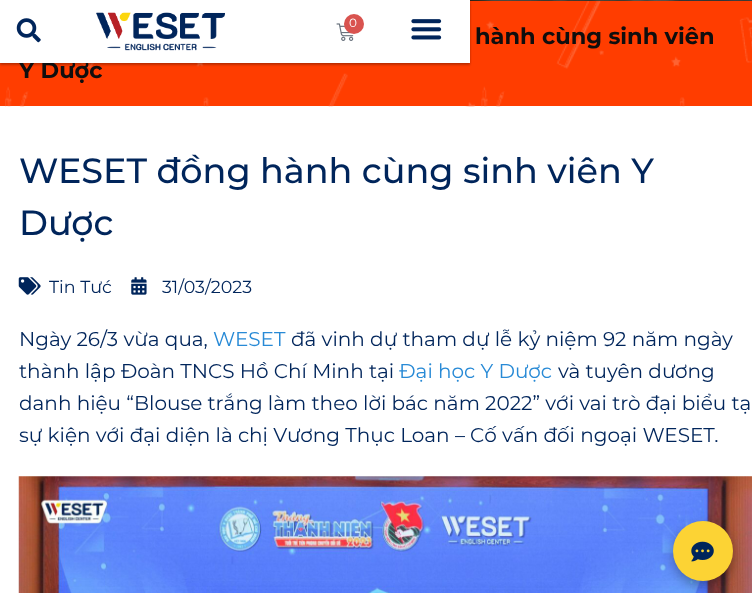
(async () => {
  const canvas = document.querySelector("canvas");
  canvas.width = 752;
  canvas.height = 593;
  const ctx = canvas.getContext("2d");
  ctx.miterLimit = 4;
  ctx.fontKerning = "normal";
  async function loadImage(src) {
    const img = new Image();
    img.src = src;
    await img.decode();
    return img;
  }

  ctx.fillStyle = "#ffffff";
  ctx.fillRect(0, 0, 752, 593);
  ctx.drawImage(await loadImage("img/5.png"), 470, 0, 282, 1);
  ctx.fillStyle = "#ff3d00";
  ctx.fillRect(0, 1, 752, 105);
  ctx.drawImage(await loadImage("img/6.png"), 5, 1, 747, 106);
  ctx.fillStyle = "rgba(0, 0, 0, 0.12)";
  ctx.filter = "blur(1px)";
  ctx.beginPath();
  ctx.rect(0, 0, 470, 63);
  ctx.fill();
  ctx.filter = "none";
  ctx.fillStyle = "rgba(0, 0, 0, 0.24)";
  ctx.filter = "blur(1px)";
  ctx.beginPath();
  ctx.rect(0, 3, 470, 62);
  ctx.fill();
  ctx.filter = "none";
  ctx.drawImage(await loadImage("img/7.png"), 18, 277, 23, 18);
  ctx.drawImage(await loadImage("img/8.png"), 131, 277, 16, 18);
  ctx.drawImage(await loadImage("img/9.png"), 18, 476, 734, 117);
  ctx.fillStyle = "rgba(0, 0, 0, 0.3)";
  ctx.filter = "blur(6px)";
  ctx.beginPath();
  ctx.roundRect(673, 526, 60, 60, 30);
  ctx.fill();
  ctx.filter = "none";
  ctx.fillStyle = "#fcd334";
  ctx.beginPath();
  ctx.arc(703, 551, 30, 0, Math.PI * 2);
  ctx.fill();
  ctx.drawImage(await loadImage("img/10.png"), 691, 541, 23, 21);
  ctx.font = "bold 22.5px Montserrat";
  ctx.fillStyle = "#0f0e0e";
  ctx.fillText("hành cùng sinh viên", 475, 44);
  ctx.fillText("Y Dược", 19, 78);
  ctx.fillStyle = "#ffffff";
  ctx.fillRect(0, 0, 470, 63);
  ctx.drawImage(await loadImage("img/1.png"), 16, 18, 25, 25);
  ctx.drawImage(await loadImage("img/3.png"), 336, 23, 18, 18);
  ctx.fillStyle = "#d9534f";
  ctx.beginPath();
  ctx.arc(354, 24, 10, 0, Math.PI * 2);
  ctx.fill();
  ctx.font = "12px Montserrat";
  ctx.fillStyle = "#ffffff";
  ctx.fillText("0", 349, 27);
  ctx.drawImage(await loadImage("img/4.png"), 411, 19, 31, 21);
  ctx.drawImage(await loadImage("img/2.png"), 96, 12, 129, 39);
  ctx.font = "500 35px Montserrat";
  ctx.fillStyle = "#00255b";
  ctx.fillText("WESET đồng hành cùng sinh viên Y", 19, 183);
  ctx.fillText("Dược", 19, 235);
  ctx.font = "17.5px Montserrat";
  ctx.fillText("Tin Tức", 49, 293);
  ctx.fillText("31/03/2023", 162, 293);
  ctx.font = "20px Montserrat";
  ctx.fillText("Ngày 26/3 vừa qua,", 19, 346);
  ctx.fillStyle = "#288ad6";
  ctx.fillText("WESET", 213, 346);
  ctx.fillStyle = "#00255b";
  ctx.fillText("đã vinh dự tham dự lễ kỷ niệm 92 năm ngày", 291, 346);
  ctx.fillText("thành lập Đoàn TNCS Hồ Chí Minh tại", 19, 378);
  ctx.fillStyle = "#288ad6";
  ctx.fillText("Đại học Y Dược", 399, 378);
  ctx.fillStyle = "#00255b";
  for (const [text, x, y] of [
    ["và tuyên dương", 558, 378],
    ["danh hiệu “Blouse trắng làm theo lời bác năm 2022” với vai trò đại biểu tạ", 19, 410],
    ["sự kiện với đại diện là chị Vương Thục Loan – Cố vấn đối ngoại WESET.", 19, 442],
  ]) {
    ctx.fillText(text, x, y);
  }
})();
